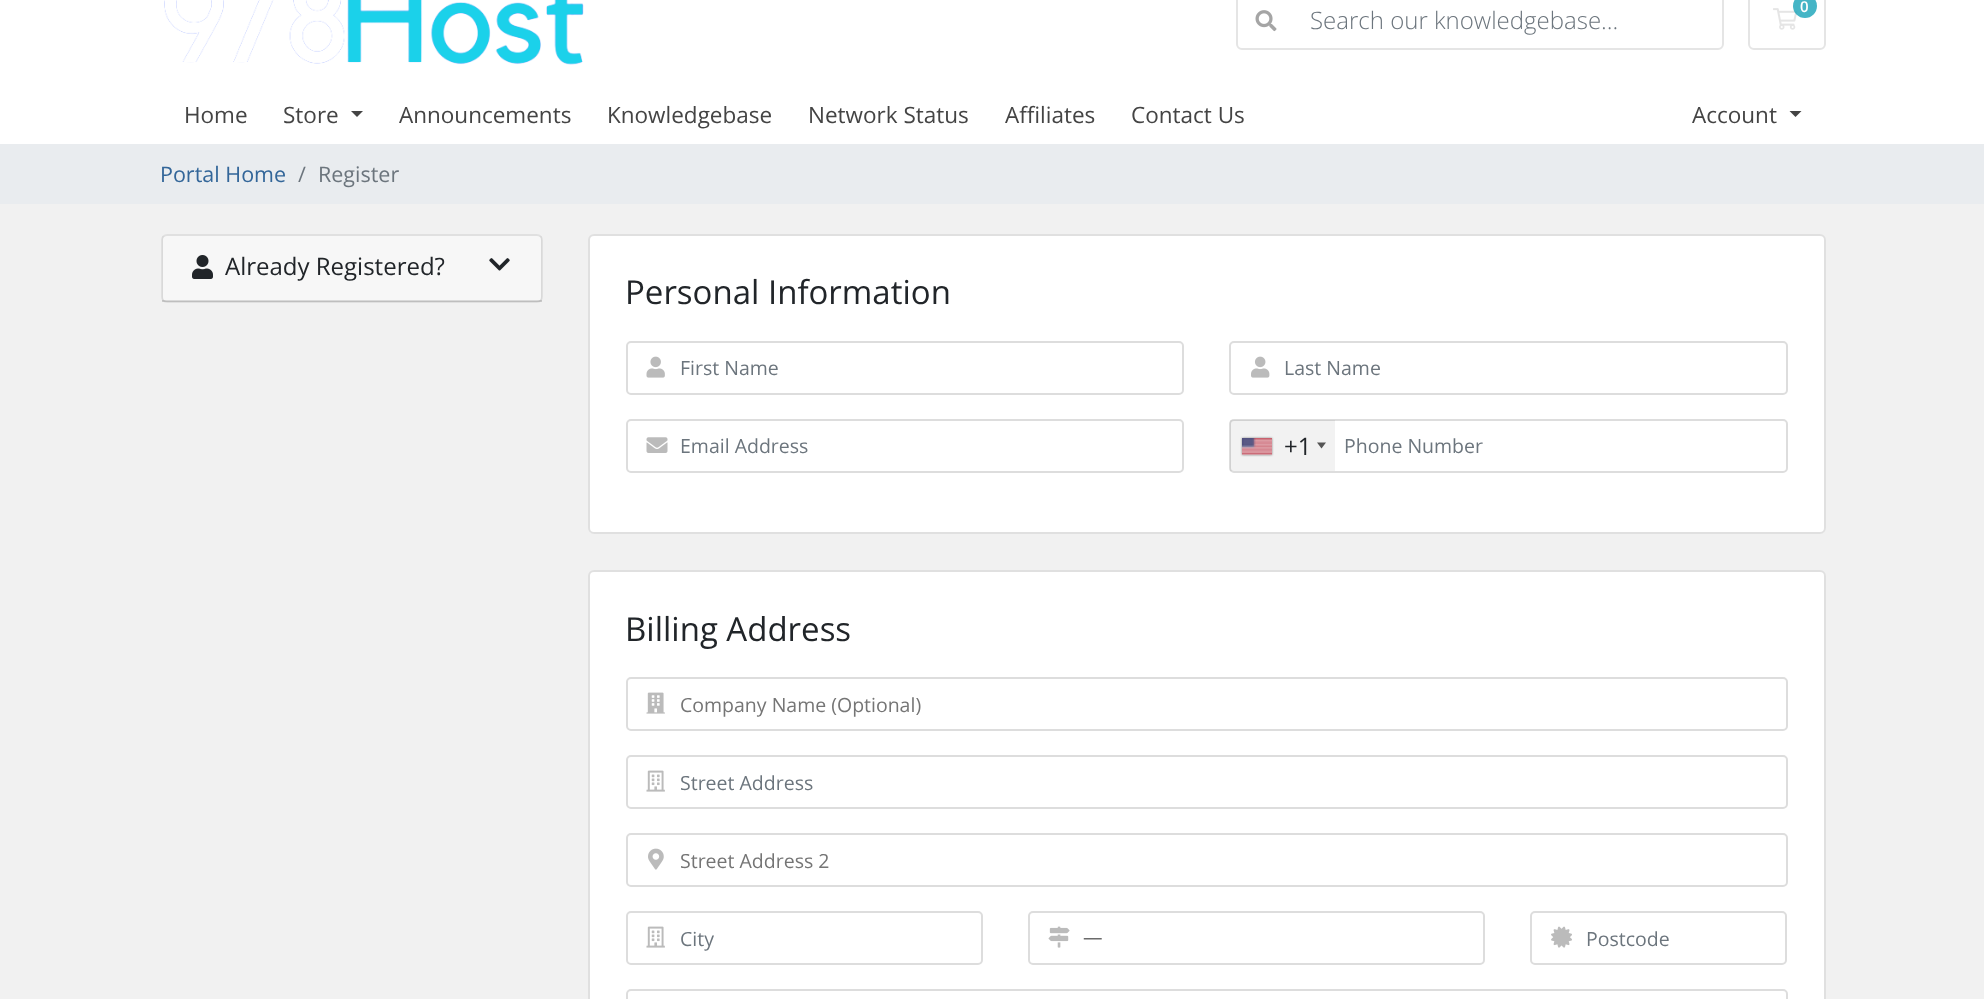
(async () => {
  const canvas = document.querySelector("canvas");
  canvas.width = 1984;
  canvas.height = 999;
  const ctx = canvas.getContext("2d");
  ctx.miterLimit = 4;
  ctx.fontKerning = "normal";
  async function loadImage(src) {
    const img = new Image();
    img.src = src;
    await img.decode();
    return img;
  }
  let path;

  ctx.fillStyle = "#f1f1f1";
  ctx.fillRect(0, 0, 1984, 999);
  ctx.fillStyle = "#ffffff";
  ctx.fillRect(0, 0, 1984, 144);
  ctx.drawImage(await loadImage("img/1.png"), 164, 0, 420, 65);
  ctx.beginPath();
  ctx.roundRect(1749, -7, 76, 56, 5);
  ctx.strokeStyle = "#e5e5e5";
  ctx.lineWidth = 2;
  ctx.stroke();
  ctx.drawImage(await loadImage("img/2.png"), 1773, 8, 25, 22);
  ctx.fillStyle = "rgba(23, 162, 184, 0.8)";
  ctx.beginPath();
  ctx.arc(1805, 6, 12, 0, Math.PI * 2);
  ctx.fill();
  ctx.beginPath();
  ctx.roundRect(1237, -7, 486, 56, 5);
  ctx.stroke();
  ctx.drawImage(await loadImage("img/3.png"), 1255, 10, 22, 22);
  ctx.fillStyle = "#444444";
  path = new Path2D("M351 111H363L357 117Z");
  ctx.fill(path);
  path = new Path2D("M1789.5 111H1801.5L1795.5 117Z");
  ctx.fill(path);
  ctx.fillStyle = "#e9ecef";
  ctx.fillRect(0, 144, 1984, 60);
  ctx.fillStyle = "#ffffff";
  ctx.beginPath();
  ctx.roundRect(161, 234, 382, 69, 6);
  ctx.fill();
  ctx.beginPath();
  ctx.roundRect(162, 235, 380, 67, 5);
  ctx.strokeStyle = "rgba(0, 0, 0, 0.12)";
  ctx.stroke();
  ctx.fillStyle = "rgba(0, 0, 0, 0.03)";
  ctx.fillRect(162, 236, 380, 66);
  ctx.fillStyle = "rgba(0, 0, 0, 0.12)";
  ctx.fillRect(162, 300, 380, 2);
  ctx.drawImage(await loadImage("img/4.png"), 192, 255, 21, 24);
  ctx.drawImage(await loadImage("img/5.png"), 489, 258, 21, 13);
  ctx.fillStyle = "#ffffff";
  ctx.beginPath();
  ctx.roundRect(588, 234, 1238, 300, 6);
  ctx.fill();
  ctx.beginPath();
  ctx.roundRect(589, 235, 1236, 298, 5);
  ctx.stroke();
  ctx.beginPath();
  ctx.roundRect(627, 342, 556, 52, 4);
  ctx.strokeStyle = "#dddddd";
  ctx.stroke();
  ctx.drawImage(await loadImage("img/6.png"), 646, 356, 19, 22);
  ctx.beginPath();
  ctx.roundRect(1230, 342, 557, 52, 4);
  ctx.stroke();
  ctx.drawImage(await loadImage("img/7.png"), 1251, 356, 19, 22);
  ctx.beginPath();
  ctx.roundRect(627, 420, 556, 52, 4);
  ctx.stroke();
  ctx.drawImage(await loadImage("img/8.png"), 646, 437, 22, 16);
  ctx.beginPath();
  ctx.roundRect(1230, 420, 557, 52, 4);
  ctx.stroke();
  ctx.fillStyle = "rgba(0, 0, 0, 0.05)";
  ctx.fillRect(1230, 420, 105, 51);
  ctx.fillStyle = "#888888";
  ctx.filter = "blur(1px)";
  ctx.beginPath();
  ctx.rect(1242, 438, 30, 17);
  ctx.fill();
  ctx.filter = "none";
  ctx.fillStyle = "#dbdbdb";
  ctx.fillRect(1242, 454, 30, 1);
  ctx.drawImage(await loadImage("img/9.png"), 1242, 438, 30, 17);
  ctx.fillStyle = "#555555";
  path = new Path2D("M1317 442.5H1326L1321.5 448.5Z");
  ctx.fill(path);
  ctx.fillStyle = "#ffffff";
  ctx.beginPath();
  ctx.roundRect(588, 570, 1238, 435, 6);
  ctx.fill();
  ctx.beginPath();
  ctx.roundRect(589, 571, 1236, 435, 5);
  ctx.strokeStyle = "rgba(0, 0, 0, 0.12)";
  ctx.stroke();
  ctx.beginPath();
  ctx.roundRect(627, 678, 1160, 52, 4);
  ctx.strokeStyle = "#dddddd";
  ctx.stroke();
  ctx.drawImage(await loadImage("img/10.png"), 646, 692, 19, 22);
  ctx.beginPath();
  ctx.roundRect(627, 756, 1160, 52, 4);
  ctx.stroke();
  ctx.drawImage(await loadImage("img/11.png"), 646, 770, 19, 22);
  ctx.beginPath();
  ctx.roundRect(627, 834, 1160, 52, 4);
  ctx.stroke();
  ctx.drawImage(await loadImage("img/12.png"), 648, 848, 16, 22);
  ctx.beginPath();
  ctx.roundRect(627, 912, 355, 52, 4);
  ctx.stroke();
  ctx.drawImage(await loadImage("img/11.png"), 646, 926, 19, 22);
  ctx.beginPath();
  ctx.roundRect(1029, 912, 455, 52, 4);
  ctx.stroke();
  ctx.drawImage(await loadImage("img/13.png"), 1048, 926, 22, 22);
  ctx.beginPath();
  ctx.roundRect(1531, 912, 255, 52, 4);
  ctx.stroke();
  ctx.drawImage(await loadImage("img/14.png"), 1551, 926, 21, 22);
  ctx.beginPath();
  ctx.roundRect(627, 990, 1160, 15, 4);
  ctx.stroke();
  ctx.font = "600 15px Open Sans";
  ctx.fillText("0", 1800, 12);
  ctx.font = "300 24px Open Sans";
  ctx.fillStyle = "#6c757d";
  ctx.fillText("Search our knowledgebase...", 1310, 29);
  ctx.font = "22.5px Open Sans";
  ctx.fillStyle = "#444444";
  for (const [text, x, y] of [
    ["Home", 184, 123],
    ["Store", 283, 123],
    ["Announcements", 399, 123],
    ["Knowledgebase", 607, 123],
    ["Network Status", 808, 123],
    ["Affiliates", 1005, 123],
    ["Contact Us", 1131, 123],
    ["Account", 1692, 123],
  ]) {
    ctx.fillText(text, x, y);
  }
  ctx.font = "21.5px Open Sans";
  ctx.fillStyle = "#336699";
  ctx.fillText("Portal Home", 160, 182);
  ctx.fillStyle = "#6c757d";
  ctx.fillText("/", 298, 182);
  ctx.fillText("Register", 318, 182);
  ctx.font = "24px Open Sans";
  ctx.fillStyle = "#212529";
  ctx.fillText("Already Registered?", 225, 275);
  ctx.font = "33px Open Sans";
  ctx.fillText("Personal Information", 625, 304);
  ctx.font = "19.5px Open Sans";
  ctx.fillStyle = "#6c757d";
  for (const [text, x, y] of [
    ["First Name", 680, 375],
    ["Last Name", 1284, 375],
    ["Email Address", 680, 453],
  ]) {
    ctx.fillText(text, x, y);
  }
  ctx.font = "24px Open Sans";
  ctx.fillStyle = "#212529";
  ctx.fillText("+1", 1284, 455);
  ctx.font = "19.5px Open Sans";
  ctx.fillStyle = "#6c757d";
  ctx.fillText("Phone Number", 1344, 453);
  ctx.font = "33px Open Sans";
  ctx.fillStyle = "#212529";
  ctx.fillText("Billing Address", 625, 641);
  ctx.font = "19.5px Open Sans";
  ctx.fillStyle = "#757575";
  ctx.fillText("Company Name (Optional)", 680, 712);
  ctx.fillStyle = "#6c757d";
  ctx.fillText("Street Address", 680, 790);
  ctx.fillStyle = "#757575";
  ctx.fillText("Street Address 2", 680, 868);
  ctx.fillStyle = "#6c757d";
  ctx.fillText("City", 680, 946);
  ctx.fillStyle = "#626262";
  ctx.fillText("—", 1083, 944);
  ctx.fillStyle = "#6c757d";
  ctx.fillText("Postcode", 1586, 946);
})();
